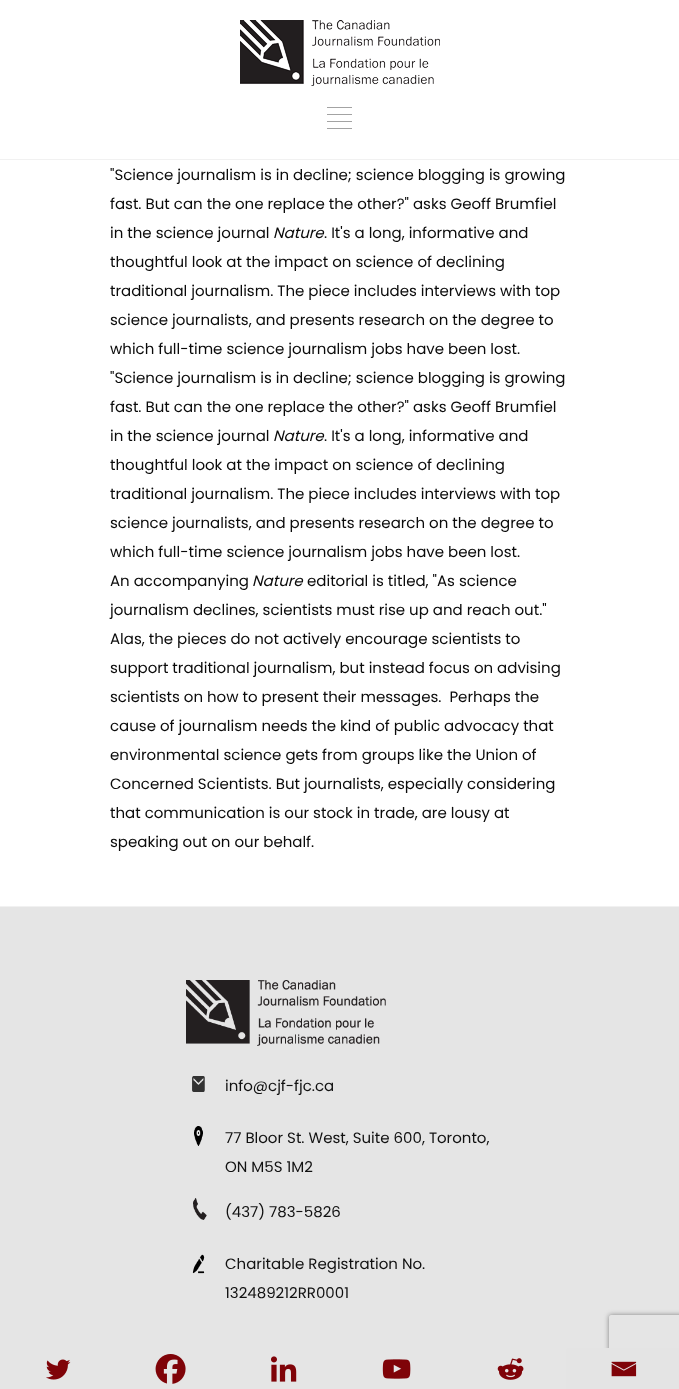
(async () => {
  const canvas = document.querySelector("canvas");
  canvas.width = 679;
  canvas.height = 1389;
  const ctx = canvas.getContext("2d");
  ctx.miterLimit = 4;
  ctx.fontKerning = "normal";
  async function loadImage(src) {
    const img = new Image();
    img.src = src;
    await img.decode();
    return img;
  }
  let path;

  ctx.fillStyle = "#ffffff";
  ctx.fillRect(0, 0, 679, 1389);
  ctx.fillStyle = "#f1f1f1";
  ctx.fillRect(0, 159, 679, 1);
  ctx.drawImage(await loadImage("img/1.png"), 240, 20, 200, 66);
  for (const [x, y, w, h, color] of [
    [327, 107, 25, 1, "#a3a3a3"],
    [327, 114, 25, 1, "#a3a3a3"],
    [327, 121, 25, 1, "#a3a3a3"],
    [327, 128, 25, 1, "#a3a3a3"],
    [0, 907, 679, 482, "#e5e5e5"],
  ]) {
    ctx.fillStyle = color;
    ctx.fillRect(x, y, w, h);
  }
  ctx.drawImage(await loadImage("img/2.png"), 46, 1359, 25, 21);
  ctx.drawImage(await loadImage("img/3.png"), 155, 1354, 31, 30);
  ctx.drawImage(await loadImage("img/4.png"), 271, 1356, 26, 26);
  ctx.drawImage(await loadImage("img/5.png"), 382, 1359, 29, 20);
  ctx.drawImage(await loadImage("img/6.png"), 497, 1358, 27, 22);
  ctx.save();
  path = new Path2D("M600 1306H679V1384H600ZM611 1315H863C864 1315 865 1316 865 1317V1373C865 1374 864 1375 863 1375H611C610 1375 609 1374 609 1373V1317C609 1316 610 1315 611 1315Z");
  ctx.clip(path, "evenodd");
  ctx.fillStyle = "#808080";
  ctx.filter = "blur(2.5px)";
  ctx.beginPath();
  ctx.roundRect(609, 1315, 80, 60, 2);
  ctx.fill();
  ctx.filter = "none";
  ctx.restore();
  ctx.fillStyle = "#e4e4e4";
  ctx.beginPath();
  ctx.roundRect(566, 1348, 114, 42, 1);
  ctx.fill();
  ctx.drawImage(await loadImage("img/7.png"), 611, 1361, 26, 16);
  ctx.fillStyle = "#f1f1f1";
  ctx.fillRect(0, 906, 679, 1);
  ctx.drawImage(await loadImage("img/8.png"), 186, 980, 200, 66);
  ctx.drawImage(await loadImage("img/9.png"), 192, 1076, 13, 16);
  ctx.drawImage(await loadImage("img/10.png"), 194, 1126, 9, 20);
  ctx.drawImage(await loadImage("img/11.png"), 193, 1198, 14, 22);
  ctx.drawImage(await loadImage("img/12.png"), 192, 1254, 13, 20);
  ctx.font = "15px Poppins";
  ctx.fillStyle = "#0a0a0a";
  for (const [text, x, y] of [
    ["\"Science journalism is in decline; science blogging is growing", 110, 180],
    ["fast. But can the one replace the other?\" asks Geoff Brumfiel", 110, 209],
    ["in the science journal", 110, 238],
  ]) {
    ctx.fillText(text, x, y);
  }
  ctx.font = "italic 15px Poppins";
  ctx.fillText("Nature", 273, 238);
  ctx.font = "15px Poppins";
  for (const [text, x, y] of [
    [". It's a long, informative and", 324, 238],
    ["thoughtful look at the impact on science of declining", 110, 267],
    ["traditional journalism. The piece includes interviews with top", 110, 296],
    ["science journalists, and presents research on the degree to", 110, 325],
    ["which full-time science journalism jobs have been lost.", 110, 354],
    ["\"Science journalism is in decline; science blogging is growing", 110, 383],
    ["fast. But can the one replace the other?\" asks Geoff Brumfiel", 110, 412],
    ["in the science journal", 110, 441],
  ]) {
    ctx.fillText(text, x, y);
  }
  ctx.font = "italic 15px Poppins";
  ctx.fillText("Nature", 273, 441);
  ctx.font = "15px Poppins";
  for (const [text, x, y] of [
    [". It's a long, informative and", 324, 441],
    ["thoughtful look at the impact on science of declining", 110, 470],
    ["traditional journalism. The piece includes interviews with top", 110, 499],
    ["science journalists, and presents research on the degree to", 110, 528],
    ["which full-time science journalism jobs have been lost.", 110, 557],
    ["An accompanying", 110, 586],
  ]) {
    ctx.fillText(text, x, y);
  }
  ctx.font = "italic 15px Poppins";
  ctx.fillText("Nature", 252, 586);
  ctx.font = "15px Poppins";
  for (const [text, x, y] of [
    ["editorial is titled, \"As science", 307, 586],
    ["journalism declines, scientists must rise up and reach out.\"", 110, 615],
    ["Alas, the pieces do not actively encourage scientists to", 110, 644],
    ["support traditional journalism, but instead focus on advising", 110, 673],
    ["scientists on how to present their messages.  Perhaps the", 110, 702],
    ["cause of journalism needs the kind of public advocacy that", 110, 731],
    ["environmental science gets from groups like the Union of", 110, 760],
    ["Concerned Scientists. But journalists, especially considering", 110, 789],
    ["that communication is our stock in trade, are lousy at", 110, 818],
    ["speaking out on our behalf.", 110, 847],
  ]) {
    ctx.fillText(text, x, y);
  }
  ctx.fillStyle = "#111111";
  for (const [text, x, y] of [
    ["info@cjf-fjc.ca", 225, 1091],
    ["77 Bloor St. West, Suite 600, Toronto,", 225, 1143],
    ["ON M5S 1M2", 225, 1172],
    ["(437) 783-5826", 225, 1217],
    ["Charitable Registration No.", 225, 1269],
    ["132489212RR0001", 225, 1298],
  ]) {
    ctx.fillText(text, x, y);
  }
})();
